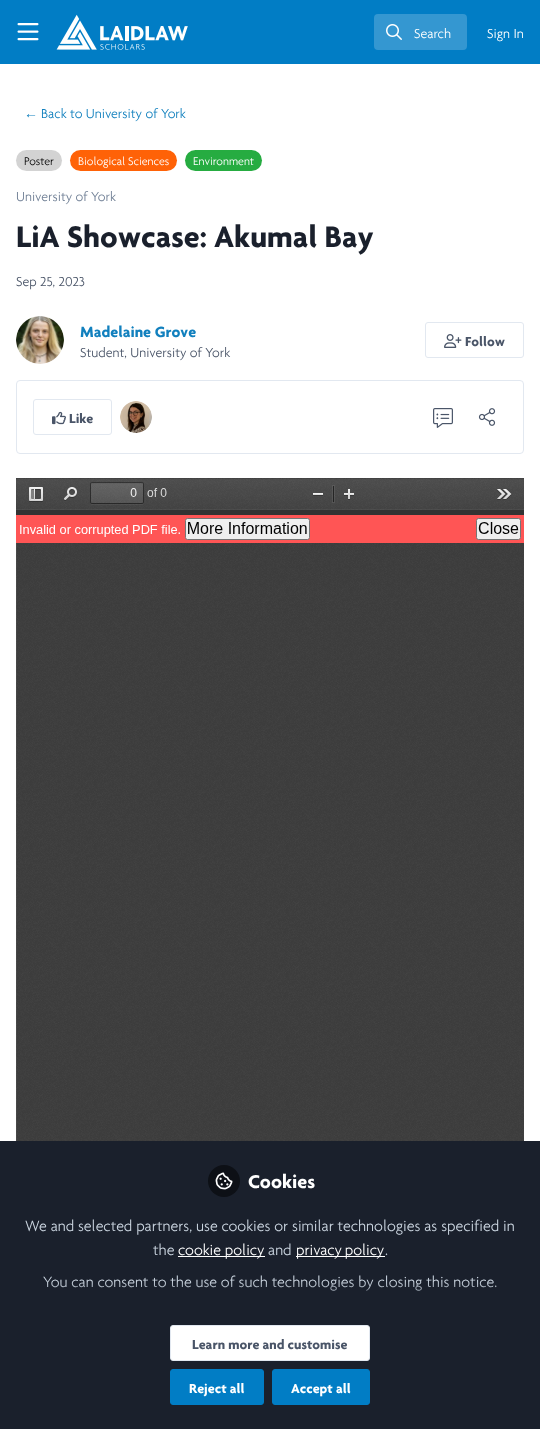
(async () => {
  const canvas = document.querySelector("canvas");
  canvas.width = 540;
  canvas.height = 1429;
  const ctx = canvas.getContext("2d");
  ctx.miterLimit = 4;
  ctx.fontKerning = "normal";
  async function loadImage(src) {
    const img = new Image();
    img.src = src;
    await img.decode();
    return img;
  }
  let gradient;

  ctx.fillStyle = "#ffffff";
  ctx.fillRect(0, 0, 540, 1429);
  ctx.fillStyle = "#017dc5";
  ctx.fillRect(0, 0, 540, 64);
  ctx.drawImage(await loadImage("img/1.png"), 17, 23, 22, 18);
  ctx.drawImage(await loadImage("img/2.png"), 56, 14, 132, 36);
  ctx.fillStyle = "#3497d1";
  ctx.beginPath();
  ctx.roundRect(374, 14, 93, 36, 4);
  ctx.fill();
  ctx.drawImage(await loadImage("img/3.png"), 386, 24, 16, 16);
  ctx.fillStyle = "#d3d3d3";
  ctx.beginPath();
  ctx.roundRect(16, 150, 46, 21, 10.5);
  ctx.fill();
  ctx.fillStyle = "#ff6207";
  ctx.beginPath();
  ctx.roundRect(70, 150, 107, 21, 10.5);
  ctx.fill();
  ctx.fillStyle = "#26ac41";
  ctx.beginPath();
  ctx.roundRect(185, 150, 77, 21, 10.5);
  ctx.fill();
  ctx.drawImage(await loadImage("img/4.png"), 16, 316, 48, 48);
  ctx.beginPath();
  ctx.roundRect(425.5, 322.5, 98, 35, 2.5);
  ctx.strokeStyle = "#e2e8f0";
  ctx.stroke();
  ctx.drawImage(await loadImage("img/5.png"), 444, 334, 18, 14);
  ctx.beginPath();
  ctx.roundRect(16.5, 380.5, 507, 73, 3.5);
  ctx.stroke();
  ctx.beginPath();
  ctx.roundRect(33.5, 399.5, 78, 35, 2.5);
  ctx.stroke();
  ctx.drawImage(await loadImage("img/6.png"), 52, 411, 14, 14);
  ctx.drawImage(await loadImage("img/7.png"), 120, 401, 32, 32);
  ctx.drawImage(await loadImage("img/8.png"), 433, 408, 20, 20);
  ctx.drawImage(await loadImage("img/9.png"), 478, 408, 18, 18);
  ctx.drawImage(await loadImage("img/10.png"), 16, 478, 508, 663);
  ctx.fillStyle = "#1a202c";
  ctx.fillRect(0, 1141, 540, 288);
  ctx.fillStyle = "#0d1016";
  ctx.beginPath();
  ctx.arc(224, 1181, 16, 0, Math.PI * 2);
  ctx.fill();
  ctx.drawImage(await loadImage("img/11.png"), 215, 1172, 18, 18);
  ctx.fillStyle = "#ffffff";
  ctx.fillRect(178, 1256, 87, 1);
  ctx.fillRect(296, 1256, 89, 1);
  ctx.beginPath();
  ctx.roundRect(170.5, 1325.5, 199, 35, 2.5);
  ctx.fill();
  ctx.stroke();
  ctx.fillStyle = "#017dc5";
  ctx.beginPath();
  ctx.roundRect(170.5, 1369.5, 93, 35, 2.5);
  ctx.fill();
  ctx.strokeStyle = "#017dc5";
  ctx.stroke();
  ctx.beginPath();
  ctx.roundRect(272.5, 1369.5, 97, 35, 2.5);
  ctx.fill();
  ctx.stroke();
  ctx.font = "300 14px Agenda";
  ctx.fillStyle = "#ffffff";
  ctx.fillText("Search", 414, 38);
  ctx.fillText("Sign In", 487, 38);
  ctx.font = "14px Liberation Sans";
  ctx.fillStyle = "#1280be";
  ctx.fillText("←", 24, 118);
  ctx.font = "300 14px Agenda";
  ctx.fillText("Back to University of York", 41, 118);
  ctx.font = "300 12px Agenda";
  ctx.fillStyle = "#000000";
  ctx.fillText("Poster", 24, 165);
  ctx.fillStyle = "#ffffff";
  ctx.fillText("Biological Sciences", 78, 165);
  ctx.fillText("Environment", 193, 165);
  ctx.font = "300 14px Agenda";
  ctx.fillStyle = "#718096";
  ctx.fillText("University of York", 16, 201);
  ctx.font = "bold 32px Agenda";
  ctx.fillStyle = "#1a202c";
  ctx.fillText("LiA Showcase: Akumal Bay", 16, 247);
  ctx.font = "300 14px Agenda";
  ctx.fillStyle = "#4a5568";
  ctx.fillText("Sep 25, 2023", 16, 286);
  ctx.font = "bold 16px Agenda";
  ctx.fillStyle = "#1280be";
  ctx.fillText("Madelaine Grove", 80, 337);
  ctx.font = "300 14px Agenda";
  ctx.fillStyle = "#4a5568";
  ctx.fillText("Student, University of York", 80, 357);
  ctx.font = "bold 14px Agenda";
  ctx.fillText("Follow", 465, 346);
  ctx.fillText("Like", 69, 423);
  ctx.font = "bold 20px Agenda";
  ctx.fillStyle = "#ffffff";
  ctx.fillText("Cookies", 248, 1188);
  ctx.font = "300 16px Agenda";
  ctx.fillStyle = "#cbd5e0";
  ctx.fillText("We and selected partners, use cookies or similar technologies as specified in", 25, 1231);
  ctx.fillText("the", 153, 1255);
  ctx.fillStyle = "#ffffff";
  ctx.fillText("cookie policy", 178, 1255);
  ctx.fillStyle = "#cbd5e0";
  ctx.fillText("and", 268, 1255);
  ctx.wordSpacing = "-1px";
  ctx.fillStyle = "#ffffff";
  ctx.fillText("privacy policy", 296, 1255);
  ctx.wordSpacing = "0px";
  ctx.fillStyle = "#cbd5e0";
  ctx.fillText(".", 385, 1255);
  ctx.fillText("You can consent to the use of such technologies by closing this notice.", 43, 1287);
  gradient = ctx.createLinearGradient(270, 1313, 270, 1281);
  gradient.addColorStop(0, "#1a202c");
  gradient.addColorStop(1, "rgba(26, 32, 44, 0)");
  ctx.fillStyle = gradient;
  ctx.fillRect(47, 1282, 450, 9);
  ctx.font = "bold 14px Agenda";
  ctx.fillStyle = "#4a5568";
  ctx.fillText("Learn more and customise", 192, 1349);
  ctx.fillStyle = "#ffffff";
  ctx.fillText("Reject all", 189, 1393);
  ctx.fillText("Accept all", 291, 1393);
})();
